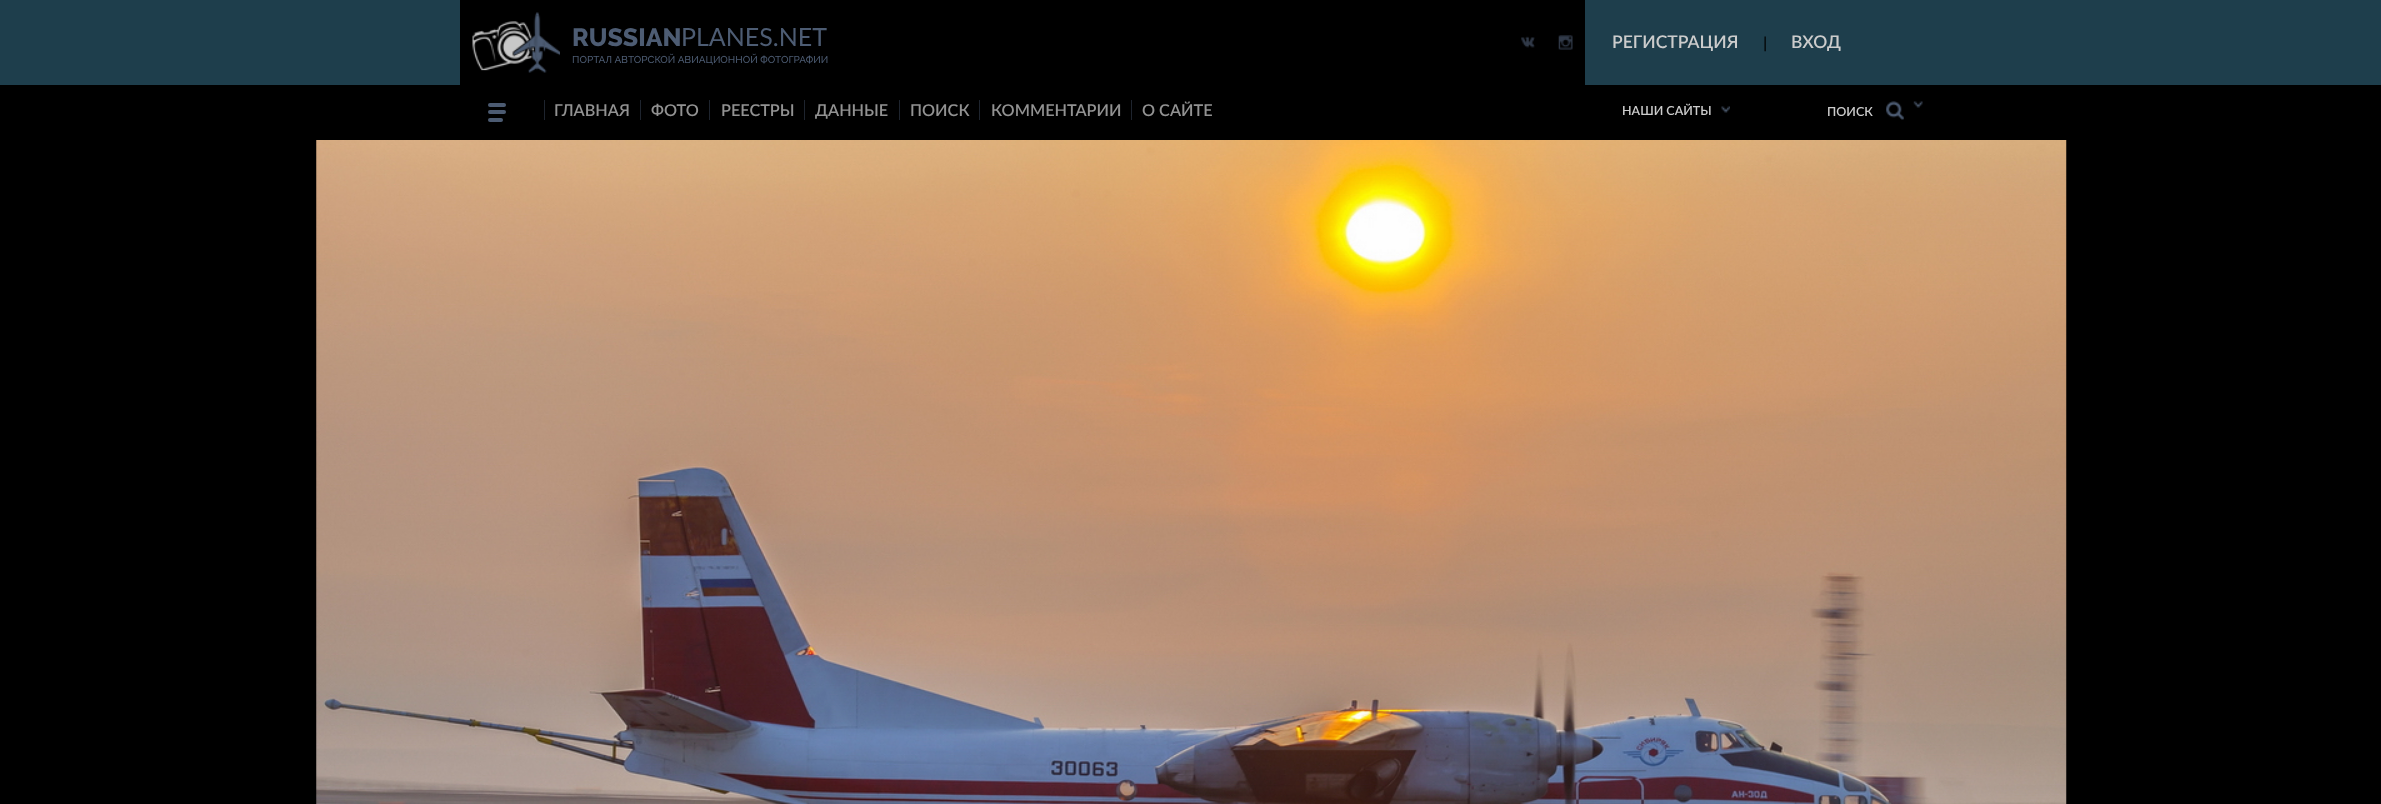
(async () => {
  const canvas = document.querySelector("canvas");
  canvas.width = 2381;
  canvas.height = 804;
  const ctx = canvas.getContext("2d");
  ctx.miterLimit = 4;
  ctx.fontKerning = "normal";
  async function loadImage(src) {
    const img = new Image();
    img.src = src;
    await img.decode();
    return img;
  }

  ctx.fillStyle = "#000000";
  ctx.fillRect(0, 0, 2381, 804);
  ctx.fillStyle = "#1e3e4c";
  ctx.fillRect(0, 0, 2381, 85);
  ctx.fillStyle = "#000000";
  ctx.fillRect(460, 0, 1125, 85);
  ctx.drawImage(await loadImage("img/1.png"), 472, 12, 88, 61);
  ctx.drawImage(await loadImage("img/2.png"), 1521, 36, 14, 12);
  ctx.drawImage(await loadImage("img/3.png"), 1558, 35, 15, 15);
  ctx.fillStyle = "#4c5b72";
  ctx.beginPath();
  ctx.roundRect(488, 103, 18, 4, 2);
  ctx.fill();
  ctx.beginPath();
  ctx.roundRect(488, 110, 18, 4, 2);
  ctx.fill();
  ctx.beginPath();
  ctx.roundRect(488, 118, 15, 4, 2);
  ctx.fill();
  for (const [x, y, w, h, color] of [
    [544, 100, 1, 20, "#1e242e"],
    [640, 100, 1, 20, "#1e242e"],
    [709, 100, 1, 20, "#1e242e"],
    [804, 100, 1, 20, "#1e242e"],
    [899, 100, 1, 20, "#1e242e"],
    [979, 100, 1, 20, "#1e242e"],
    [1131, 100, 1, 20, "#1e242e"],
  ]) {
    ctx.fillStyle = color;
    ctx.fillRect(x, y, w, h);
  }
  ctx.drawImage(await loadImage("img/4.png"), 1721, 106, 9, 7);
  ctx.drawImage(await loadImage("img/5.png"), 1886, 101, 18, 19);
  ctx.drawImage(await loadImage("img/6.png"), 1913, 101, 10, 7);
  ctx.drawImage(await loadImage("img/7.png"), 316, 140, 1751, 664);
  ctx.font = "800 25px Raleway";
  ctx.fillStyle = "#4d5c73";
  ctx.fillText("RUSSIAN", 572, 46);
  ctx.font = "25px Lato";
  ctx.fillText("PLANES.NET", 681, 46);
  ctx.font = "500 10px Raleway";
  ctx.fillText("ПОРТАЛ АВТОРСКОЙ АВИАЦИОННОЙ ФОТОГРАФИИ", 572, 63);
  ctx.font = "600 17.5px Lato";
  ctx.fillStyle = "#cccccc";
  ctx.fillText("РЕГИСТРАЦИЯ", 1612, 48);
  ctx.font = "17.5px Roboto";
  ctx.fillStyle = "#000000";
  ctx.fillText("|", 1763, 49);
  ctx.font = "600 17.5px Lato";
  ctx.fillStyle = "#cccccc";
  ctx.fillText("ВХОД", 1791, 48);
  ctx.font = "600 16.25px Lato";
  ctx.fillStyle = "#929292";
  for (const [text, x, y] of [
    ["ГЛАВНАЯ", 554, 116],
    ["ФОТО", 651, 116],
    ["РЕЕСТРЫ", 721, 116],
    ["ДАННЫЕ", 815, 116],
    ["ПОИСК", 910, 116],
    ["КОММЕНТАРИИ", 991, 116],
    ["О САЙТЕ", 1142, 116],
  ]) {
    ctx.fillText(text, x, y);
  }
  ctx.font = "600 12.5px Lato";
  ctx.fillStyle = "#cccccc";
  ctx.fillText("НАШИ САЙТЫ", 1622, 115);
  ctx.fillText("ПОИСК", 1827, 116);
})();
